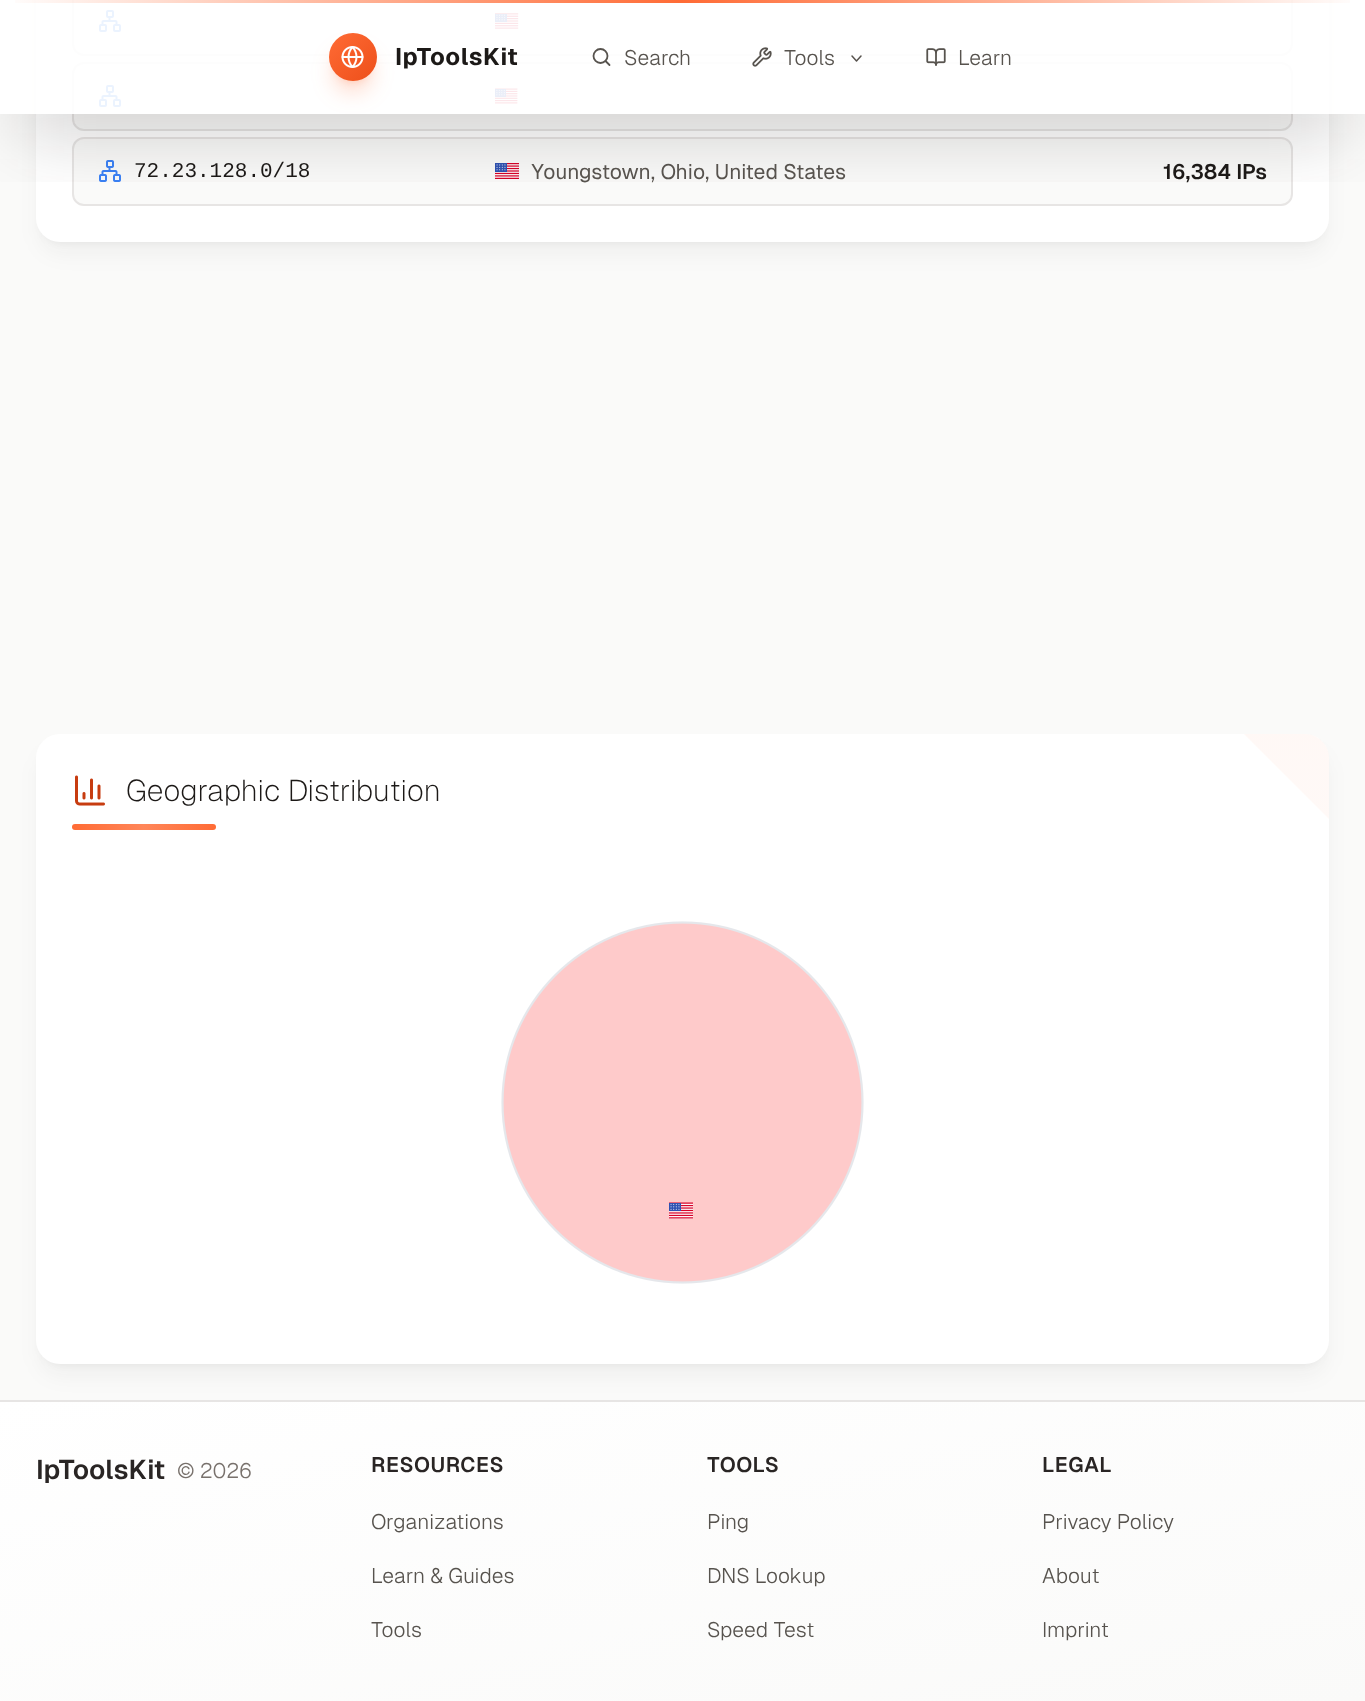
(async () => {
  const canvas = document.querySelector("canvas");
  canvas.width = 1365;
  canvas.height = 1701;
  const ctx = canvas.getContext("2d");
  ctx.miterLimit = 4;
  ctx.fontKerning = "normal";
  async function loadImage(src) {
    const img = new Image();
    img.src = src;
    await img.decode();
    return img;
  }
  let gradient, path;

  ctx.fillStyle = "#fafaf9";
  ctx.fillRect(0, 0, 1365, 1701);
  ctx.fillStyle = "rgba(28, 25, 23, 0.05)";
  ctx.filter = "blur(4.5px)";
  ctx.beginPath();
  ctx.roundRect(42, -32, 1281, 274, 18);
  ctx.fill();
  ctx.filter = "none";
  ctx.filter = "blur(11px)";
  ctx.beginPath();
  ctx.roundRect(41, -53, 1284, 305, 20);
  ctx.fill();
  ctx.filter = "none";
  ctx.fillStyle = "#ffffff";
  ctx.beginPath();
  ctx.roundRect(36, -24, 1293, 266, 24);
  ctx.fill();
  ctx.fillStyle = "#fafaf9";
  ctx.beginPath();
  ctx.roundRect(73, -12, 1219, 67, 11);
  ctx.fill();
  ctx.strokeStyle = "#e7e5e4";
  ctx.lineWidth = 2;
  ctx.stroke();
  ctx.drawImage(await loadImage("img/4.png"), 99, 10, 22, 22);
  ctx.drawImage(await loadImage("img/5.png"), 495, 13, 24, 16);
  ctx.beginPath();
  ctx.roundRect(73, 63, 1219, 67, 11);
  ctx.fill();
  ctx.stroke();
  ctx.drawImage(await loadImage("img/4.png"), 99, 85, 22, 22);
  ctx.drawImage(await loadImage("img/6.png"), 495, 88, 23, 16);
  ctx.beginPath();
  ctx.roundRect(73, 138, 1219, 67, 11);
  ctx.fill();
  ctx.stroke();
  ctx.drawImage(await loadImage("img/4.png"), 99, 160, 22, 22);
  ctx.drawImage(await loadImage("img/7.png"), 495, 163, 24, 16);
  ctx.save();
  ctx.beginPath();
  ctx.rect(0, 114, 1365, 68);
  ctx.clip();
  ctx.fillStyle = "rgba(28, 25, 23, 0.2)";
  ctx.filter = "blur(37.5px)";
  ctx.beginPath();
  ctx.rect(18, 56, 1329, 78);
  ctx.fill();
  ctx.filter = "none";
  ctx.restore();
  ctx.fillStyle = "rgba(255, 255, 255, 0.9)";
  ctx.fillRect(0, 0, 1365, 114);
  gradient = ctx.createLinearGradient(0, 1.5, 1365, 1.5);
  gradient.addColorStop(0, "rgba(255, 107, 53, 0)");
  gradient.addColorStop(0.5, "#ff6b35");
  gradient.addColorStop(1, "rgba(255, 107, 53, 0)");
  ctx.fillStyle = gradient;
  ctx.fillRect(15, 0, 1335, 3);
  ctx.fillStyle = "rgba(255, 107, 53, 0.25)";
  ctx.filter = "blur(4.5px)";
  ctx.beginPath();
  ctx.roundRect(335, 45, 36, 36, 18);
  ctx.fill();
  ctx.filter = "none";
  ctx.filter = "blur(11px)";
  ctx.beginPath();
  ctx.roundRect(333, 53, 39, 39, 19.5);
  ctx.fill();
  ctx.filter = "none";
  gradient = ctx.createLinearGradient(329, 33, 377, 81);
  gradient.addColorStop(0, "#ff6b35");
  gradient.addColorStop(1, "#ed4f1a");
  ctx.fillStyle = gradient;
  ctx.beginPath();
  ctx.arc(353, 57, 24, 0, Math.PI * 2);
  ctx.fill();
  ctx.drawImage(await loadImage("img/1.png"), 341, 46, 23, 22);
  path = new Path2D("M609.5 65L605.5 61");
  ctx.strokeStyle = "#57534e";
  ctx.lineWidth = 1.8;
  ctx.lineCap = "round";
  ctx.lineJoin = "round";
  ctx.stroke(path);
  ctx.beginPath();
  ctx.arc(600.5, 56, 7, 0, Math.PI * 2);
  ctx.stroke();
  ctx.drawImage(await loadImage("img/2.png"), 752, 47, 20, 20);
  path = new Path2D("M852 56L856.5 61L861 56");
  ctx.lineWidth = 1.5;
  ctx.stroke(path);
  ctx.drawImage(await loadImage("img/3.png"), 926, 48, 20, 18);
  ctx.fillStyle = "rgba(28, 25, 23, 0.05)";
  ctx.filter = "blur(4.5px)";
  ctx.beginPath();
  ctx.roundRect(42, 746, 1281, 618, 18);
  ctx.fill();
  ctx.filter = "none";
  gradient = ctx.createLinearGradient(620, 1265, 745, 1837);
  gradient.addColorStop(0, "#ffffff");
  gradient.addColorStop(1, "#fafaf9");
  ctx.fillStyle = gradient;
  ctx.fillRect(0, 1402, 1365, 299);
  ctx.fillStyle = "#e7e5e4";
  ctx.fillRect(0, 1400, 1365, 2);
  ctx.fillStyle = "rgba(28, 25, 23, 0.05)";
  ctx.filter = "blur(11px)";
  ctx.beginPath();
  ctx.roundRect(41, 753, 1284, 621, 20);
  ctx.fill();
  ctx.filter = "none";
  ctx.fillStyle = "#ffffff";
  ctx.beginPath();
  ctx.roundRect(36, 734, 1293, 630, 24);
  ctx.fill();
  ctx.drawImage(await loadImage("img/8.png"), 75, 775, 30, 31);
  gradient = ctx.createLinearGradient(72, 827, 216, 827);
  gradient.addColorStop(0, "#ff6b35");
  gradient.addColorStop(0.5, "#ff8659");
  gradient.addColorStop(1, "#ff6b35");
  ctx.fillStyle = gradient;
  ctx.beginPath();
  ctx.roundRect(72, 824, 144, 6, 3);
  ctx.fill();
  ctx.drawImage(await loadImage("img/9.png"), 501, 921, 363, 363);
  gradient = ctx.createLinearGradient(1329, 649, 1329, 819);
  gradient.addColorStop(0, "rgba(255, 107, 53, 0.05)");
  gradient.addColorStop(1, "rgba(255, 134, 89, 0.05)");
  ctx.fillStyle = gradient;
  path = new Path2D("M1329 819V758C1329 745 1318 734 1305 734H1244Z");
  ctx.fill(path);
  ctx.letterSpacing = "0.5px";
  ctx.font = "bold 24px Geist";
  ctx.fillStyle = "#1c1917";
  ctx.fillText("IpToolsKit", 395, 65);
  ctx.letterSpacing = "0px";
  ctx.font = "300 21px Geist";
  ctx.fillStyle = "#57534e";
  for (const [text, x, y] of [
    ["Search", 624, 65],
    ["Tools", 784, 65],
    ["Learn", 958, 65],
  ]) {
    ctx.fillText(text, x, y);
  }
  ctx.font = "21px Liberation Mono";
  ctx.fillStyle = "#1c1917";
  ctx.fillText("72.23.128.0/18", 134, 177);
  ctx.font = "21px Geist";
  ctx.fillStyle = "#57534e";
  ctx.fillText("Youngstown, Ohio, United States", 531, 179);
  ctx.font = "600 21px Geist";
  ctx.fillStyle = "#1c1917";
  ctx.fillText("16,384 IPs", 1163, 179);
  ctx.font = "200 30px Geist";
  ctx.fillText("Geographic Distribution", 126, 801);
  ctx.font = "600 27px Geist";
  ctx.fillStyle = "#292524";
  ctx.fillText("IpToolsKit", 36, 1479);
  ctx.font = "300 21px Geist";
  ctx.fillStyle = "#78716c";
  ctx.fillText("© 2026", 177, 1478);
  ctx.letterSpacing = "0.5px";
  ctx.font = "600 21px Geist";
  ctx.fillStyle = "#292524";
  ctx.fillText("RESOURCES", 371, 1472);
  ctx.letterSpacing = "0px";
  ctx.font = "300 21px Geist";
  ctx.fillStyle = "#57534e";
  for (const [text, x, y] of [
    ["Organizations", 371, 1529],
    ["Learn & Guides", 371, 1583],
    ["Tools", 371, 1637],
  ]) {
    ctx.fillText(text, x, y);
  }
  ctx.letterSpacing = "0.5px";
  ctx.font = "600 21px Geist";
  ctx.fillStyle = "#292524";
  ctx.fillText("TOOLS", 707, 1472);
  ctx.letterSpacing = "0px";
  ctx.font = "300 21px Geist";
  ctx.fillStyle = "#57534e";
  for (const [text, x, y] of [
    ["Ping", 707, 1529],
    ["DNS Lookup", 707, 1583],
    ["Speed Test", 707, 1637],
  ]) {
    ctx.fillText(text, x, y);
  }
  ctx.letterSpacing = "0.5px";
  ctx.font = "600 21px Geist";
  ctx.fillStyle = "#292524";
  ctx.fillText("LEGAL", 1042, 1472);
  ctx.letterSpacing = "0px";
  ctx.font = "300 21px Geist";
  ctx.fillStyle = "#57534e";
  for (const [text, x, y] of [
    ["Privacy Policy", 1042, 1529],
    ["About", 1042, 1583],
    ["Imprint", 1042, 1637],
  ]) {
    ctx.fillText(text, x, y);
  }
})();
